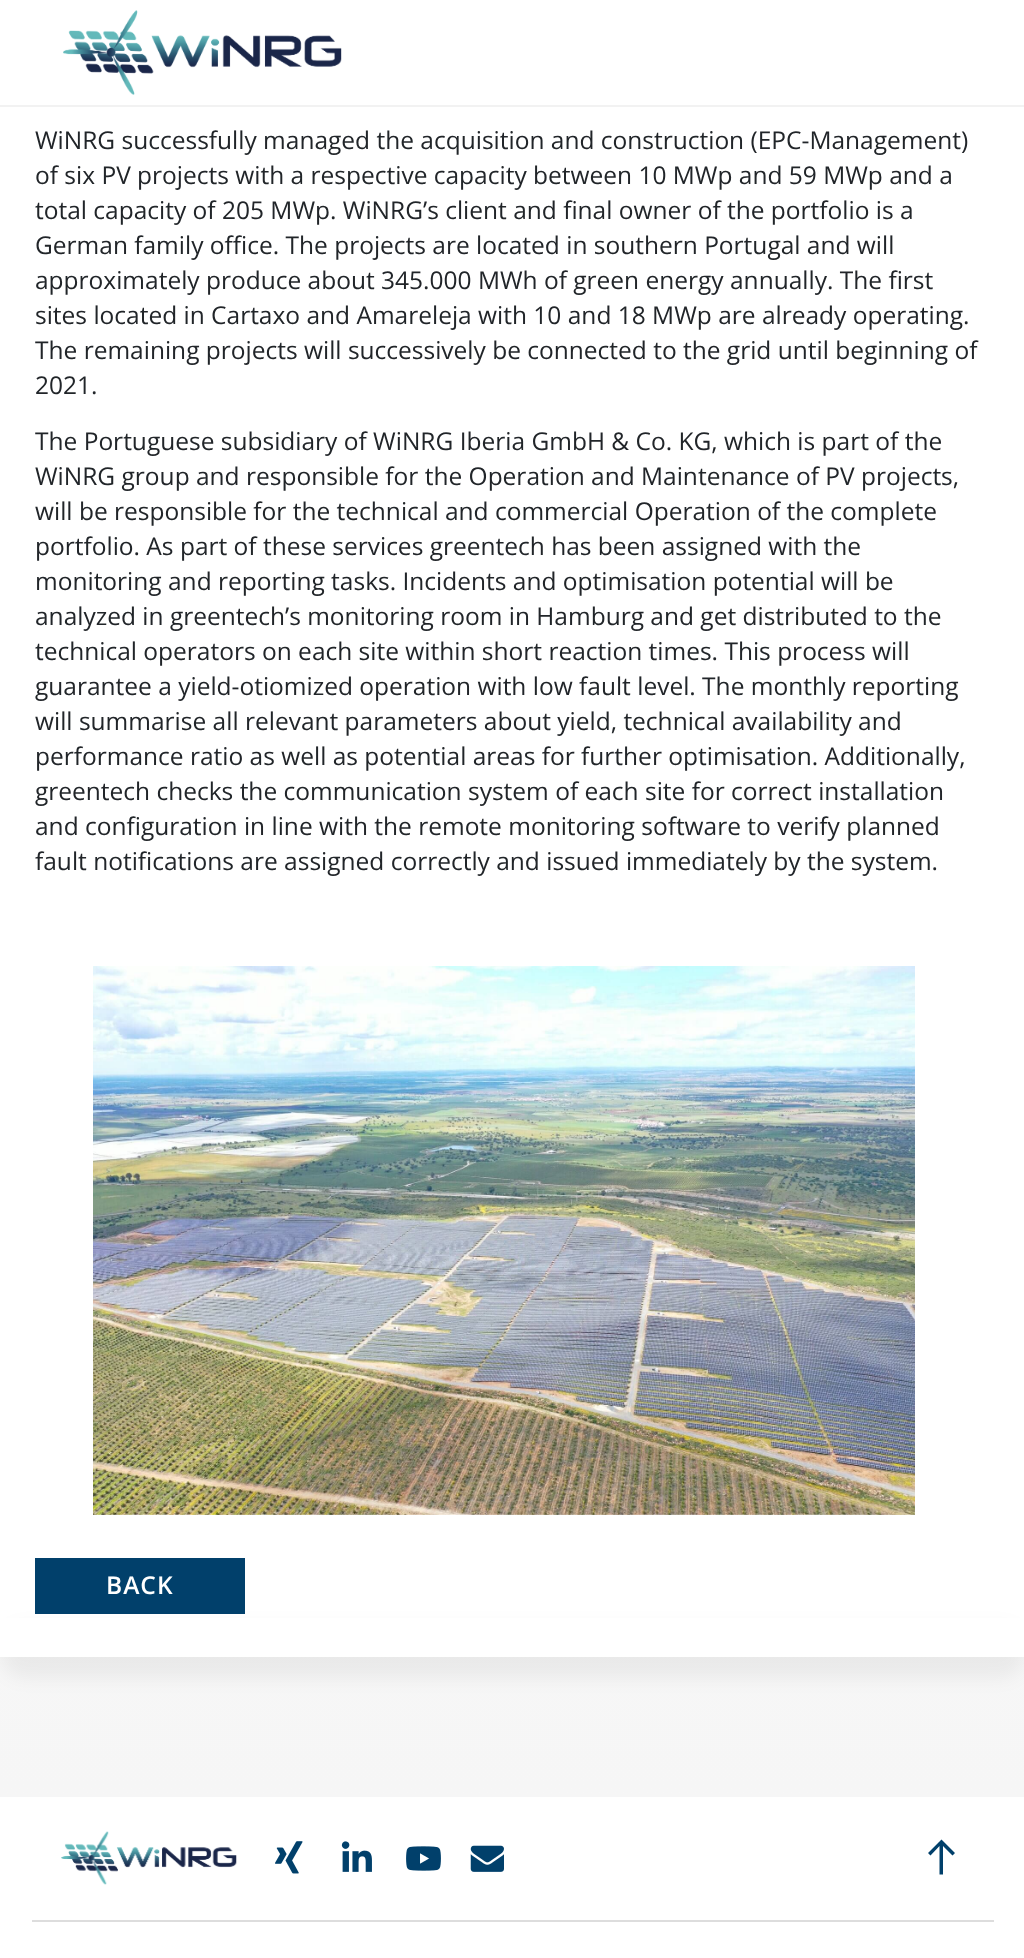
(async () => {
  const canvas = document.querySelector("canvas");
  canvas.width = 1024;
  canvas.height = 1958;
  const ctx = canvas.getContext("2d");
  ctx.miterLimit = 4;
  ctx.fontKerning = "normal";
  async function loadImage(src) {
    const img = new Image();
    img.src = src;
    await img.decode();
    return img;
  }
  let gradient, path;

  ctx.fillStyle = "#ffffff";
  ctx.fillRect(0, 0, 1024, 1958);
  ctx.fillStyle = "#f2f2f2";
  path = new Path2D("M0 105V107H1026V2V105Z");
  ctx.fill(path);
  ctx.drawImage(await loadImage("img/1.png"), 63, 10, 279, 85);
  ctx.drawImage(await loadImage("img/2.png"), 93, 966, 822, 549);
  gradient = ctx.createLinearGradient(513, -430, 513, 1797);
  gradient.addColorStop(0, "#ffffff");
  gradient.addColorStop(1, "#f6f6f6");
  ctx.fillStyle = gradient;
  ctx.fillRect(0, 1657, 1024, 140);
  ctx.fillStyle = "rgba(0, 0, 0, 0.05)";
  ctx.filter = "blur(9px)";
  ctx.beginPath();
  ctx.roundRect(0, 1626, 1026, 52, 26);
  ctx.fill();
  ctx.filter = "none";
  ctx.fillStyle = "#01406b";
  ctx.fillRect(35, 1558, 210, 56);
  ctx.fillStyle = "#ffffff";
  ctx.fillRect(0, 1618, 1024, 39);
  ctx.drawImage(await loadImage("img/3.png"), 61, 1831, 176, 54);
  ctx.drawImage(await loadImage("img/4.png"), 275, 1841, 28, 33);
  ctx.drawImage(await loadImage("img/5.png"), 341, 1841, 31, 31);
  ctx.drawImage(await loadImage("img/6.png"), 406, 1846, 35, 25);
  ctx.drawImage(await loadImage("img/7.png"), 470, 1845, 34, 27);
  ctx.fillStyle = "#01406b";
  path = new Path2D("M939 1842L941.5 1839.5L955 1853L952.5 1855.5L943 1846V1874.5H939.5V1846L930.5 1855.5L928 1853Z");
  ctx.fill(path);
  ctx.fillStyle = "#dddddd";
  ctx.fillRect(32, 1920, 962, 2);
  ctx.font = "24.5px Open Sans";
  ctx.fillStyle = "#212529";
  for (const [text, x, y] of [
    ["WiNRG successfully managed the acquisition and construction (EPC-Management)", 35, 149],
    ["of six PV projects with a respective capacity between 10 MWp and 59 MWp and a", 35, 184],
    ["total capacity of 205 MWp. WiNRG’s client and final owner of the portfolio is a", 35, 219],
    ["German family office. The projects are located in southern Portugal and will", 35, 254],
    ["approximately produce about 345.000 MWh of green energy annually. The first", 35, 289],
    ["sites located in Cartaxo and Amareleja with 10 and 18 MWp are already operating.", 35, 324],
    ["The remaining projects will successively be connected to the grid until beginning of", 35, 359],
    ["2021.", 35, 394],
    ["The Portuguese subsidiary of WiNRG Iberia GmbH & Co. KG, which is part of the", 35, 450],
    ["WiNRG group and responsible for the Operation and Maintenance of PV projects,", 35, 485],
    ["will be responsible for the technical and commercial Operation of the complete", 35, 520],
    ["portfolio. As part of these services greentech has been assigned with the", 35, 555],
    ["monitoring and reporting tasks. Incidents and optimisation potential will be", 35, 590],
    ["analyzed in greentech’s monitoring room in Hamburg and get distributed to the", 35, 625],
    ["technical operators on each site within short reaction times. This process will", 35, 660],
    ["guarantee a yield-otiomized operation with low fault level. The monthly reporting", 35, 695],
    ["will summarise all relevant parameters about yield, technical availability and", 35, 730],
    ["performance ratio as well as potential areas for further optimisation. Additionally,", 35, 765],
    ["greentech checks the communication system of each site for correct installation", 35, 800],
    ["and configuration in line with the remote monitoring software to verify planned", 35, 835],
    ["fault notifications are assigned correctly and issued immediately by the system.", 35, 870],
  ]) {
    ctx.fillText(text, x, y);
  }
  ctx.letterSpacing = "1px";
  ctx.font = "600 24.5px Open Sans";
  ctx.fillStyle = "#ffffff";
  ctx.fillText("BACK", 106, 1594);
})();
